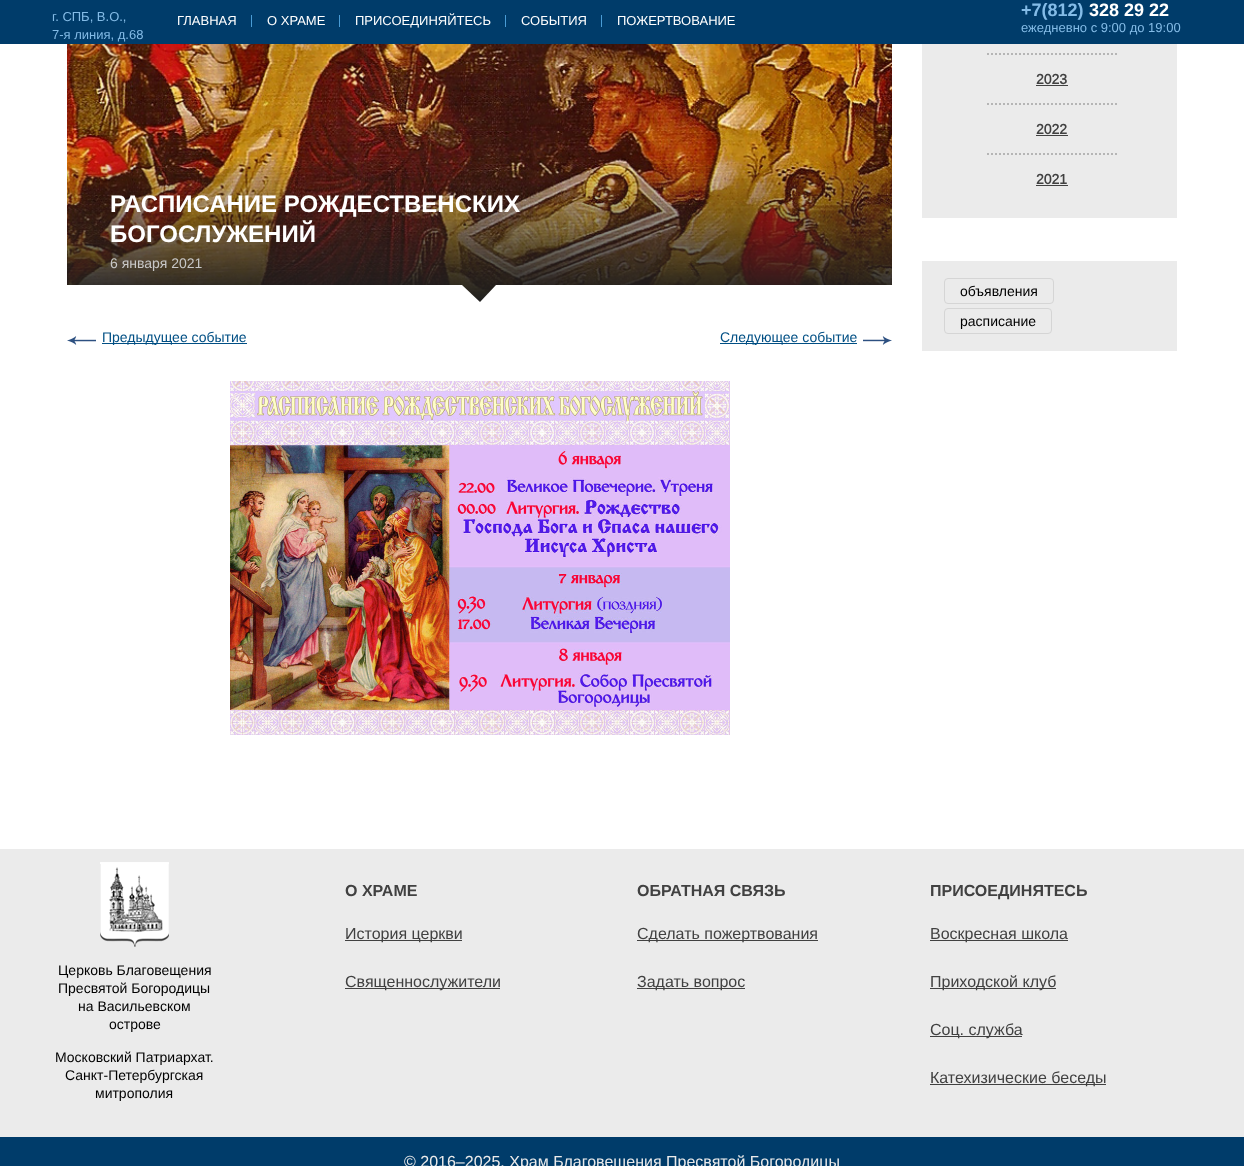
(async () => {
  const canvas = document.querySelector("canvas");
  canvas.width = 1244;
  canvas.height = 1166;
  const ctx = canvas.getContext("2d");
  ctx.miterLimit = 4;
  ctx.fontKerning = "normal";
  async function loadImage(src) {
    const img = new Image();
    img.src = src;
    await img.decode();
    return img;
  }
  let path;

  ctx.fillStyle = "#ffffff";
  ctx.fillRect(0, 0, 1244, 1166);
  for (const [x, y, w, h, color] of [
    [0, 0, 1244, 44, "#003c6a"],
    [251, 15, 1, 12, "#4a9cd5"],
    [339, 15, 1, 12, "#4a9cd5"],
    [505, 15, 1, 12, "#4a9cd5"],
    [601, 15, 1, 12, "#4a9cd5"],
  ]) {
    ctx.fillStyle = color;
    ctx.fillRect(x, y, w, h);
  }
  ctx.drawImage(await loadImage("img/1.png"), 67, 44, 825, 258);
  ctx.save();
  ctx.beginPath();
  ctx.rect(67, 0, 825, 302);
  ctx.clip();
  ctx.fillStyle = "#ffffff";
  path = new Path2D("M50 285H462L480 302H67Z");
  ctx.fill(path);
  path = new Path2D("M496 285H909L892 302H480Z");
  ctx.fill(path);
  ctx.restore();
  ctx.drawImage(await loadImage("img/2.png"), 67, 336, 29, 9);
  ctx.fillStyle = "#014f84";
  ctx.fillRect(102, 343, 145, 1);
  ctx.fillRect(720, 343, 137, 1);
  ctx.drawImage(await loadImage("img/3.png"), 863, 336, 29, 9);
  ctx.drawImage(await loadImage("img/4.png"), 230, 381, 500, 354);
  ctx.fillStyle = "#ebebeb";
  ctx.fillRect(922, 44, 255, 174);
  path = new Path2D("M987 54H1117");
  ctx.strokeStyle = "#b5b5b5";
  ctx.lineWidth = 2;
  ctx.setLineDash([2, 2]);
  ctx.stroke(path);
  path = new Path2D("M987 104H1117");
  ctx.stroke(path);
  ctx.fillStyle = "#414141";
  ctx.fillRect(1036, 85, 32, 1);
  path = new Path2D("M987 154H1117");
  ctx.stroke(path);
  for (const [x, y, w, h, color] of [
    [1036, 135, 32, 1, "#414141"],
    [1036, 185, 32, 1, "#414141"],
    [922, 261, 255, 90, "#ebebeb"],
  ]) {
    ctx.fillStyle = color;
    ctx.fillRect(x, y, w, h);
  }
  ctx.beginPath();
  ctx.roundRect(944.5, 278.5, 109, 25, 3.5);
  ctx.strokeStyle = "#d5d5d5";
  ctx.lineWidth = 1;
  ctx.setLineDash([]);
  ctx.stroke();
  ctx.beginPath();
  ctx.roundRect(944.5, 308.5, 107, 25, 3.5);
  ctx.stroke();
  ctx.fillRect(0, 849, 1244, 288);
  ctx.drawImage(await loadImage("img/5.png"), 100, 862, 69, 85);
  for (const [x, y, w, h, color] of [
    [345, 940, 117, 1, "#414141"],
    [345, 988, 155, 1, "#414141"],
    [637, 940, 181, 1, "#414141"],
    [637, 988, 108, 1, "#414141"],
    [930, 940, 138, 1, "#414141"],
    [930, 988, 126, 1, "#414141"],
    [930, 1036, 92, 1, "#414141"],
    [930, 1084, 176, 1, "#414141"],
    [0, 1137, 1244, 29, "#003c6a"],
  ]) {
    ctx.fillStyle = color;
    ctx.fillRect(x, y, w, h);
  }
  ctx.font = "13px Arimo";
  ctx.fillStyle = "#84bce7";
  ctx.fillText("г. СПБ, В.О.,", 52, 21);
  ctx.fillText("7-я линия, д.68", 52, 39);
  ctx.fillStyle = "#ffffff";
  for (const [text, x, y] of [
    ["ГЛАВНАЯ", 177, 25],
    ["О ХРАМЕ", 267, 25],
    ["ПРИСОЕДИНЯЙТЕСЬ", 355, 25],
    ["СОБЫТИЯ", 521, 25],
    ["ПОЖЕРТВОВАНИЕ", 617, 25],
  ]) {
    ctx.fillText(text, x, y);
  }
  ctx.font = "bold 18px 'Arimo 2'";
  ctx.fillStyle = "#84bce7";
  ctx.fillText("+7(812)", 1021, 16);
  ctx.fillStyle = "#ffffff";
  ctx.fillText("328 29 22", 1089, 16);
  ctx.font = "13px Arimo";
  ctx.fillStyle = "#84bce7";
  ctx.fillText("ежедневно с 9:00 до 19:00", 1021, 32);
  ctx.font = "bold 24px 'Arimo 2'";
  ctx.fillStyle = "#ffffff";
  ctx.fillText("РАСПИСАНИЕ РОЖДЕСТВЕНСКИХ", 110, 212);
  ctx.fillText("БОГОСЛУЖЕНИЙ", 110, 242);
  ctx.font = "14px Arimo";
  ctx.fillStyle = "#c8c8c8";
  ctx.fillText("6 января 2021", 110, 268);
  ctx.fillStyle = "#014f84";
  ctx.fillText("Предыдущее событие", 102, 342);
  ctx.fillText("Следующее событие", 720, 342);
  ctx.font = "bold 14px Arimo";
  ctx.fillStyle = "#414141";
  for (const [text, x, y] of [
    ["2023", 1036, 84],
    ["2022", 1036, 134],
    ["2021", 1036, 184],
  ]) {
    ctx.fillText(text, x, y);
  }
  ctx.font = "14px Arimo";
  ctx.fillStyle = "#000000";
  for (const [text, x, y] of [
    ["объявления", 960, 296],
    ["расписание", 960, 326],
    ["Церковь Благовещения", 58, 975],
    ["Пресвятой Богородицы", 58, 993],
    ["на Васильевском", 78, 1011],
    ["острове", 109, 1029],
    ["Московский Патриархат.", 55, 1062],
    ["Санкт-Петербургская", 65, 1080],
    ["митрополия", 95, 1098],
  ]) {
    ctx.fillText(text, x, y);
  }
  ctx.font = "bold 16px 'Arimo 2'";
  ctx.fillStyle = "#414141";
  ctx.fillText("О ХРАМЕ", 345, 896);
  ctx.font = "16px Arimo";
  ctx.fillText("История церкви", 345, 939);
  ctx.fillText("Священнослужители", 345, 987);
  ctx.font = "bold 16px 'Arimo 2'";
  ctx.fillText("ОБРАТНАЯ СВЯЗЬ", 637, 896);
  ctx.font = "16px Arimo";
  ctx.fillText("Сделать пожертвования", 637, 939);
  ctx.fillText("Задать вопрос", 637, 987);
  ctx.font = "bold 16px 'Arimo 2'";
  ctx.fillText("ПРИСОЕДИНЯТЕСЬ", 930, 896);
  ctx.font = "16px Arimo";
  for (const [text, x, y] of [
    ["Воскресная школа", 930, 939],
    ["Приходской клуб", 930, 987],
    ["Соц. служба", 930, 1035],
    ["Катехизические беседы", 930, 1083],
  ]) {
    ctx.fillText(text, x, y);
  }
  ctx.fillStyle = "#ebebeb";
  ctx.fillText("© 2016–2025. Храм Благовещения Пресвятой Богородицы", 404, 1167);
})();
